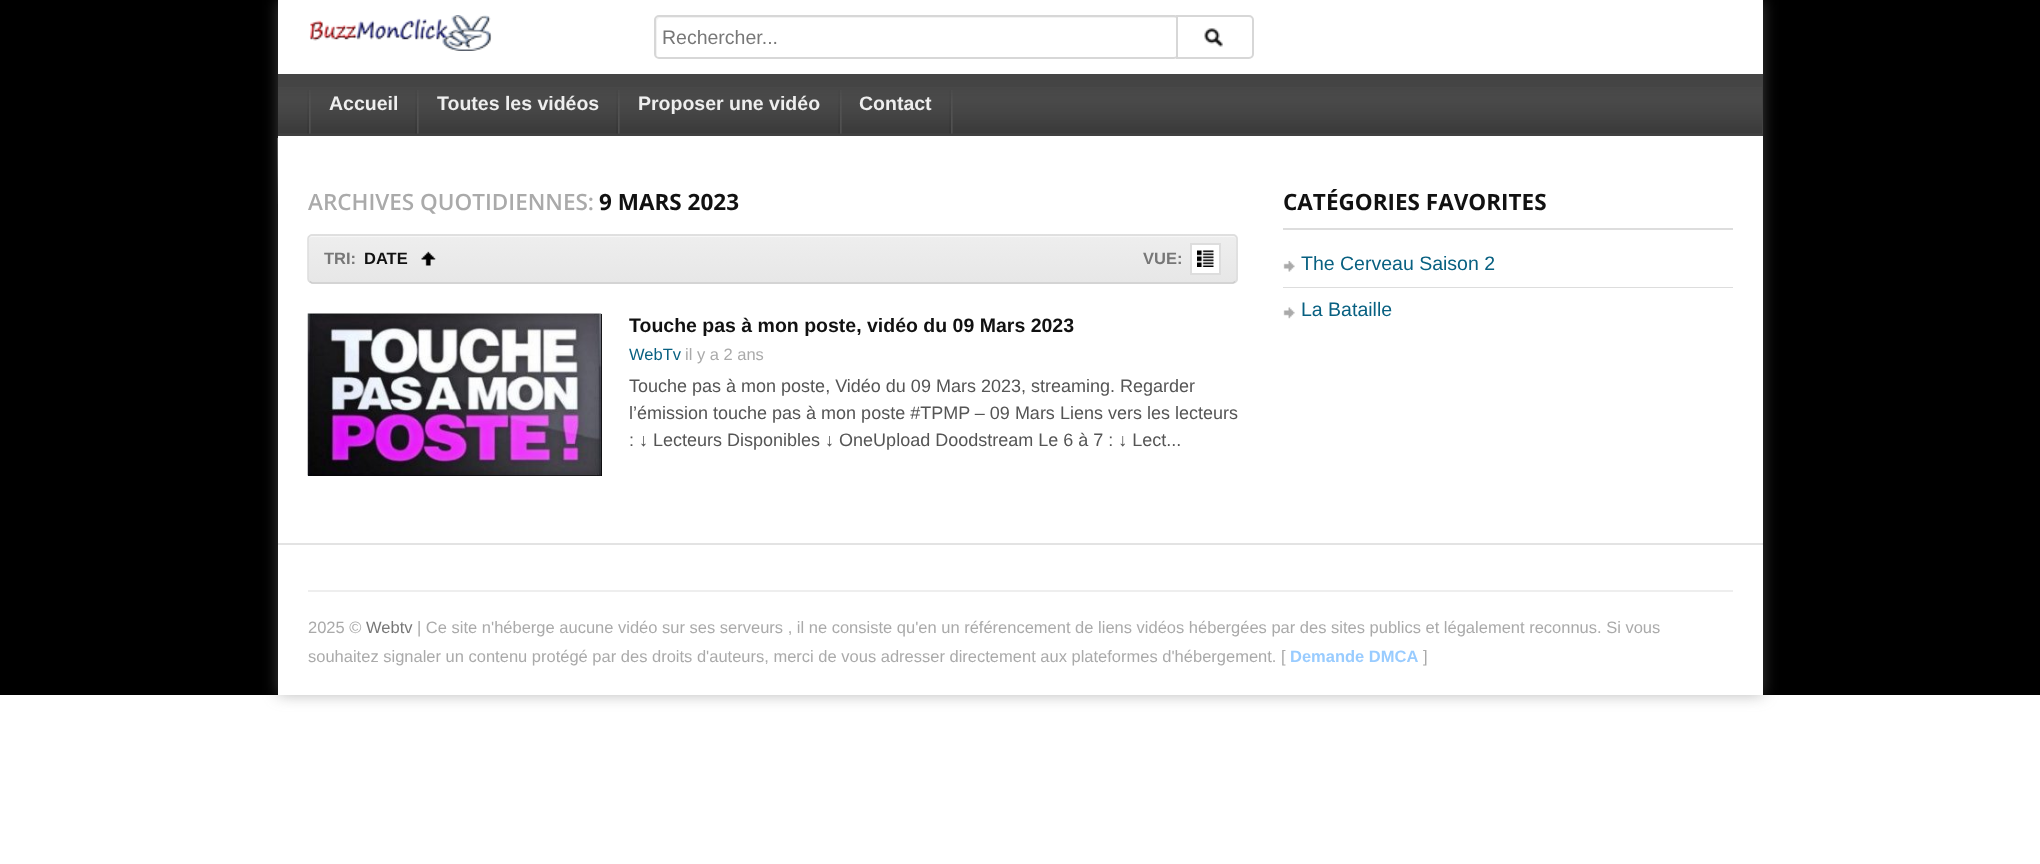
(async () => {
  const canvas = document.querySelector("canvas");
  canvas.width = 2040;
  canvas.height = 864;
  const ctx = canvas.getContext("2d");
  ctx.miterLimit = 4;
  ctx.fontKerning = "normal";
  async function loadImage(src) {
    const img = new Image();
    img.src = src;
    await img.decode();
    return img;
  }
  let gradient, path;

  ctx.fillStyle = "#ffffff";
  ctx.fillRect(0, 0, 2040, 864);
  ctx.fillStyle = "#000000";
  ctx.fillRect(0, 0, 2040, 695);
  ctx.fillStyle = "rgba(120, 120, 120, 0.5)";
  ctx.filter = "blur(7.5px)";
  ctx.beginPath();
  ctx.rect(278, 0, 1485, 695);
  ctx.fill();
  ctx.filter = "none";
  ctx.fillStyle = "#ffffff";
  ctx.fillRect(278, 0, 1485, 695);
  ctx.drawImage(await loadImage("img/1.png"), 309, 15, 183, 36);
  ctx.fillStyle = "#f2f2f2";
  path = new Path2D("M660 18H1177C1177 17 1176 17 1175 17H659C657 17 656 18 656 20V54C656 55 656 56 657 56V27C657 24 656 18 660 18Z");
  ctx.fill(path);
  ctx.beginPath();
  ctx.roundRect(655, 16, 523, 42, 4);
  ctx.strokeStyle = "#d7d7d7";
  ctx.lineWidth = 2;
  ctx.stroke();
  ctx.fillStyle = "#ffffff";
  ctx.beginPath();
  ctx.roundRect(1177, 16, 76, 42, [0, 4, 4, 0]);
  ctx.fill();
  ctx.stroke();
  ctx.drawImage(await loadImage("img/2.png"), 1204, 28, 19, 19);
  ctx.fillStyle = "#444444";
  ctx.fillRect(278, 74, 1485, 60);
  ctx.drawImage(await loadImage("img/3.png"), 278, 87, 1484, 47);
  ctx.fillStyle = "#404040";
  ctx.fillRect(278, 134, 1485, 2);
  ctx.drawImage(await loadImage("img/4.png"), 949, 90, 4, 44);
  ctx.drawImage(await loadImage("img/4.png"), 307, 90, 4, 44);
  ctx.drawImage(await loadImage("img/4.png"), 415, 90, 4, 44);
  ctx.drawImage(await loadImage("img/4.png"), 616, 90, 4, 44);
  ctx.drawImage(await loadImage("img/4.png"), 838, 90, 4, 44);
  ctx.drawImage(await loadImage("img/5.png"), 277, 138, 1, 66);
  ctx.save();
  ctx.beginPath();
  ctx.roundRect(308, 234, 930, 50, 5);
  ctx.clip();
  gradient = ctx.createLinearGradient(773, 189, 773, 236);
  gradient.addColorStop(0, "#eeeeee");
  gradient.addColorStop(1, "#e7e7e7");
  ctx.fillStyle = gradient;
  ctx.fillRect(308, 234, 930, 2);
  gradient = ctx.createLinearGradient(773, 235, 773, 282);
  gradient.addColorStop(0, "#eeeeee");
  gradient.addColorStop(1, "#e7e7e7");
  ctx.fillStyle = gradient;
  ctx.fillRect(308, 236, 930, 46);
  gradient = ctx.createLinearGradient(773, 282, 773, 329);
  gradient.addColorStop(0, "#eeeeee");
  gradient.addColorStop(1, "#e7e7e7");
  ctx.fillStyle = gradient;
  ctx.fillRect(308, 282, 930, 2);
  ctx.restore();
  ctx.fillStyle = "#f7f7f7";
  path = new Path2D("M312 237H1233C1235 237 1236 238 1236 240C1236 238 1235 236 1233 236H312C310 236 309 238 309 240C309 238 310 237 312 237Z");
  ctx.fill(path);
  path = new Path2D("M1235.5 281.5L1233 283H312L309.5 281.5");
  ctx.strokeStyle = "#cccccc";
  ctx.lineWidth = 1.5;
  ctx.stroke(path);
  path = new Path2D("M309.5 281.5C308.5 281 308 280 308 279V238.5C308 237.5 308.5 236.5 309.5 236C310 235 311 235 312 235H1233C1234 235 1235 235 1235.5 236C1236.5 236.5 1237 237.5 1237 238.5V279C1237 280 1236.5 281 1235.5 281.5");
  ctx.strokeStyle = "#dddddd";
  ctx.stroke(path);
  ctx.drawImage(await loadImage("img/6.png"), 421, 251, 15, 15);
  ctx.fillStyle = "#ffffff";
  ctx.beginPath();
  ctx.rect(1191, 244, 29, 30);
  ctx.fill();
  ctx.lineWidth = 2;
  ctx.stroke();
  ctx.drawImage(await loadImage("img/7.png"), 1197, 250, 17, 17);
  ctx.fillStyle = "#000000";
  ctx.fillRect(308, 314, 294, 162);
  ctx.drawImage(await loadImage("img/8.png"), 307, 313, 295, 163);
  ctx.fillStyle = "#dddddd";
  ctx.fillRect(1283, 228, 450, 2);
  ctx.drawImage(await loadImage("img/9.png"), 1283, 261, 12, 11);
  ctx.fillRect(1283, 287, 450, 1);
  ctx.drawImage(await loadImage("img/10.png"), 1283, 307, 12, 12);
  ctx.fillStyle = "#e3e3e3";
  ctx.fillRect(278, 543, 1485, 2);
  ctx.fillStyle = "#eeeeee";
  ctx.fillRect(308, 590, 1425, 2);
  ctx.font = "19.5px Liberation Sans";
  ctx.fillStyle = "#777777";
  ctx.fillText("Rechercher...", 662, 44);
  ctx.font = "bold 19.5px Liberation Sans";
  ctx.fillStyle = "#eeeeee";
  for (const [text, x, y] of [
    ["Accueil", 329, 110],
    ["Toutes les vidéos", 437, 110],
    ["Proposer une vidéo", 638, 110],
    ["Contact", 859, 110],
  ]) {
    ctx.fillText(text, x, y);
  }
  ctx.font = "600 22.5px Open Sans";
  ctx.fillStyle = "#aaaaaa";
  ctx.fillText("ARCHIVES QUOTIDIENNES:", 308, 210);
  ctx.font = "bold 22.5px Open Sans";
  ctx.fillStyle = "#111111";
  ctx.fillText("9 MARS 2023", 599, 210);
  ctx.font = "bold 16.5px Liberation Sans";
  ctx.fillStyle = "#777777";
  ctx.fillText("TRI:", 324, 264);
  ctx.fillStyle = "#111111";
  ctx.fillText("DATE", 364, 264);
  ctx.fillStyle = "#777777";
  ctx.fillText("VUE:", 1143, 264);
  ctx.font = "bold 19.5px Liberation Sans";
  ctx.fillStyle = "#111111";
  ctx.fillText("Touche pas à mon poste, vidéo du 09 Mars 2023", 629, 332);
  ctx.font = "16.5px Liberation Sans";
  ctx.fillStyle = "#086081";
  ctx.fillText("WebTv", 629, 360);
  ctx.fillStyle = "#aaaaaa";
  ctx.fillText("il y a 2 ans", 685, 360);
  ctx.font = "18px Liberation Sans";
  ctx.fillStyle = "#555555";
  for (const [text, x, y] of [
    ["Touche pas à mon poste, Vidéo du 09 Mars 2023, streaming. Regarder", 629, 392],
    ["l’émission touche pas à mon poste #TPMP – 09 Mars Liens vers les lecteurs", 629, 419],
    [": ↓ Lecteurs Disponibles ↓ OneUpload Doodstream Le 6 à 7 : ↓ Lect...", 629, 446],
  ]) {
    ctx.fillText(text, x, y);
  }
  ctx.font = "bold 22.5px Open Sans";
  ctx.fillStyle = "#111111";
  ctx.fillText("CATÉGORIES FAVORITES", 1283, 210);
  ctx.font = "19.5px Liberation Sans";
  ctx.fillStyle = "#086081";
  ctx.fillText("The Cerveau Saison 2", 1301, 270);
  ctx.fillText("La Bataille", 1301, 316);
  ctx.font = "16.5px Liberation Sans";
  ctx.fillStyle = "#aaaaaa";
  ctx.fillText("2025 ©", 308, 633);
  ctx.fillStyle = "#777777";
  ctx.fillText("Webtv", 366, 633);
  ctx.fillStyle = "#aaaaaa";
  ctx.fillText("| Ce site n'héberge aucune vidéo sur ses serveurs , il ne consiste qu'en un référencement de liens vidéos hébergées par des sites publics et légalement reconnus. Si vous", 417, 633);
  ctx.fillText("souhaitez signaler un contenu protégé par des droits d'auteurs, merci de vous adresser directement aux plateformes d'hébergement. [", 308, 662);
  ctx.font = "bold 16.5px Liberation Sans";
  ctx.fillStyle = "#99ccff";
  ctx.fillText("Demande DMCA", 1290, 662);
  ctx.font = "16.5px Liberation Sans";
  ctx.fillStyle = "#aaaaaa";
  ctx.fillText("]", 1423, 662);
})();
